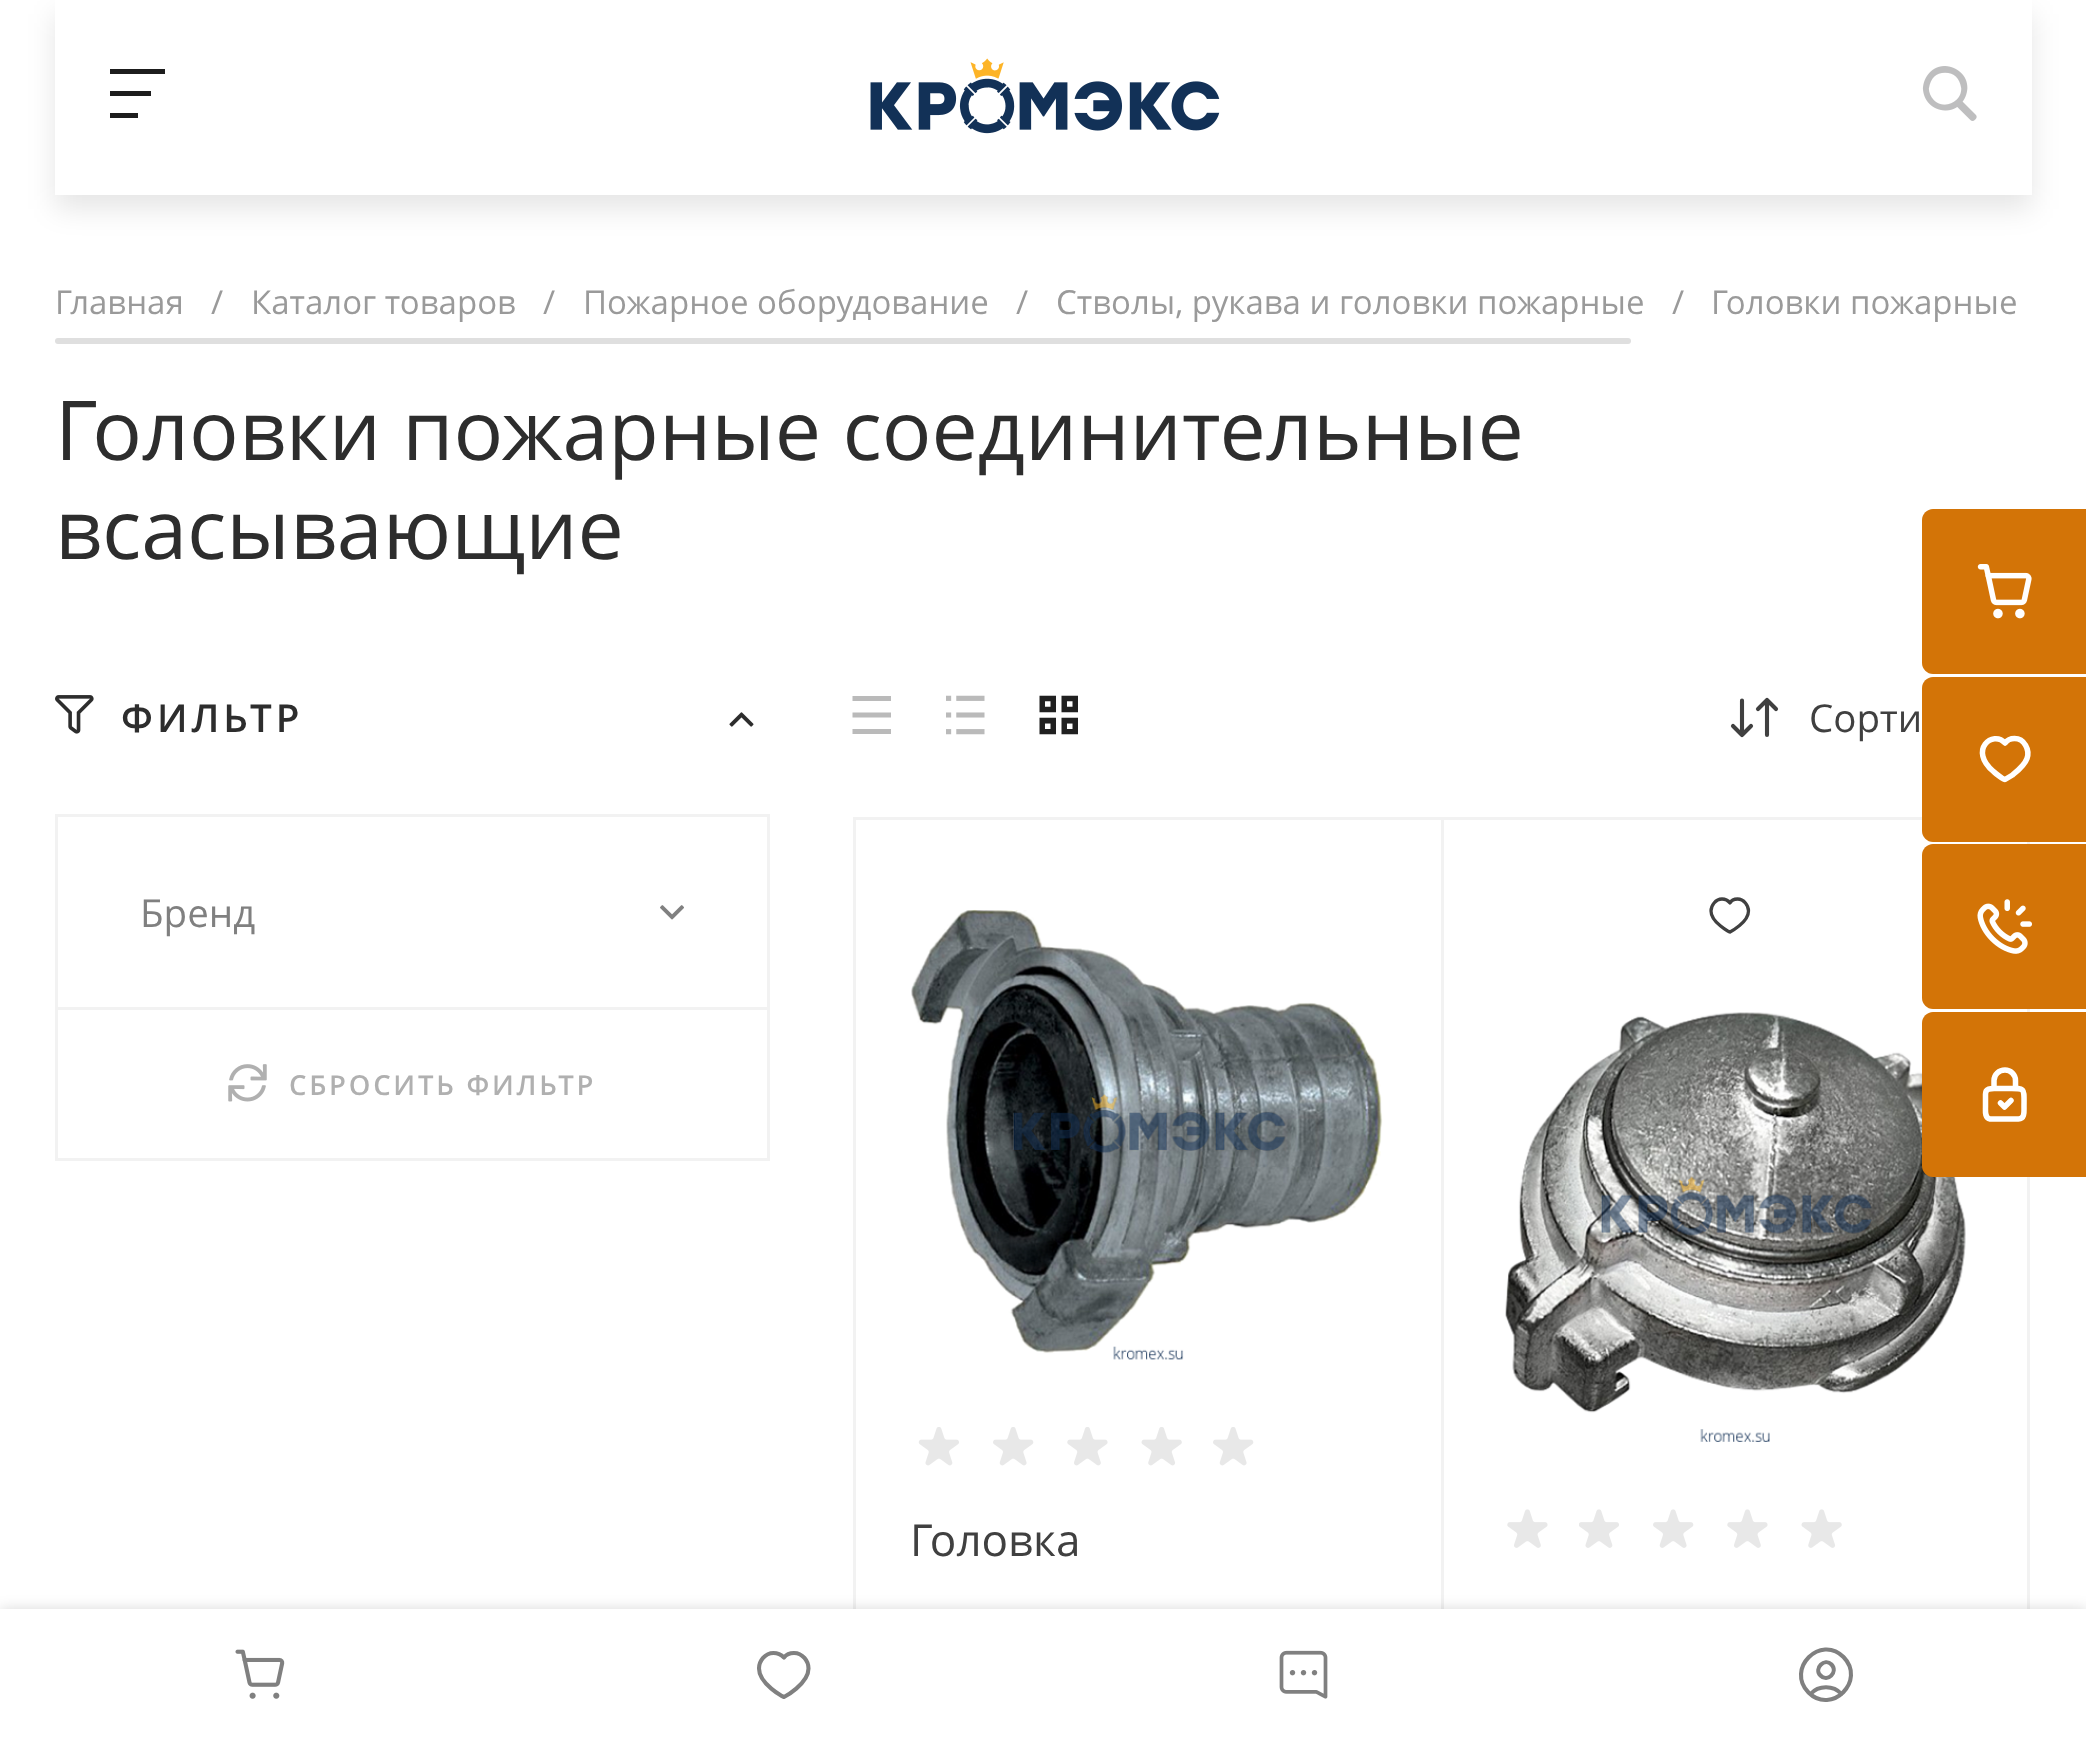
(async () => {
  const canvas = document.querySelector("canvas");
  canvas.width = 2086;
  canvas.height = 1760;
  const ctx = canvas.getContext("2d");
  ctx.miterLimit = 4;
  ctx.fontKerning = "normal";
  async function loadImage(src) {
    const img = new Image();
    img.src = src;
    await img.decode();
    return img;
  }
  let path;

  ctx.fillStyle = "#ffffff";
  ctx.fillRect(0, 0, 2086, 1760);
  ctx.fillStyle = "rgba(0, 0, 0, 0.1)";
  ctx.filter = "blur(14px)";
  ctx.beginPath();
  ctx.rect(55, 14, 1977, 195);
  ctx.fill();
  ctx.filter = "none";
  ctx.fillStyle = "#ffffff";
  ctx.fillRect(55, 0, 1977, 195);
  ctx.fillStyle = "#1d1d1d";
  path = new Path2D("M110 69V74H165V69ZM110 91V96H151V91ZM110 113V118H138V113Z");
  ctx.fill(path);
  ctx.drawImage(await loadImage("img/1.png"), 870, 58, 350, 76);
  ctx.drawImage(await loadImage("img/2.png"), 1922, 66, 55, 55);
  ctx.fillStyle = "#dfdfdf";
  ctx.beginPath();
  ctx.roundRect(55, 338, 1576, 6, 3);
  ctx.fill();
  ctx.fillStyle = "#d37407";
  path = new Path2D("M1933 509H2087V674H1933C1927 674 1922 669 1922 663V520C1922 514 1927 509 1933 509Z");
  ctx.fill(path);
  ctx.drawImage(await loadImage("img/3.png"), 1977, 564, 55, 55);
  ctx.strokeStyle = "#f2f2f2";
  ctx.lineWidth = 3;
  ctx.strokeRect(854.5, 818.5, 588, 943);
  ctx.strokeRect(1442.5, 818.5, 586, 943);
  path = new Path2D("M1933 677H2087V842H1933C1927 842 1922 837 1922 831V688C1922 682 1927 677 1933 677Z");
  ctx.fill(path);
  path = new Path2D("M2014.5 738.5C2024.5 738.5 2030 750 2027 758.5C2024.5 765.5 2018 770.5 2012.5 775L2005 779.5C2003 779.5 1995 773 1993.5 771.5C1968 750 1993 729.5 2005 743C2006.5 741 2009.5 738.5 2014.5 738.5Z");
  ctx.strokeStyle = "#ffffff";
  ctx.lineWidth = 5.5;
  ctx.lineCap = "round";
  ctx.lineJoin = "round";
  ctx.stroke(path);
  path = new Path2D("M1933 844H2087V1009H1933C1927 1009 1922 1004 1922 998V855C1922 849 1927 844 1933 844Z");
  ctx.fill(path);
  ctx.drawImage(await loadImage("img/4.png"), 1977, 899, 55, 55);
  ctx.drawImage(await loadImage("img/18.png"), 1505, 1012, 461, 430);
  path = new Path2D("M1933 1012H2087V1177H1933C1927 1177 1922 1172 1922 1166V1023C1922 1017 1927 1012 1933 1012Z");
  ctx.fill(path);
  path = new Path2D("M2011 1100.5L2004.5 1107L2000.5 1103M1994 1088.5V1080.5C1994 1074.5 1999 1070 2005 1070C2010.5 1070 2015.5 1074.5 2015.5 1080.5V1088.5M2018.5 1119H1990C1984.5 1118 1985.5 1111 1985.5 1107V1094C1985.5 1088 1991.5 1088.5 1995.5 1088.5H2005C2026 1088.5 2024 1086.5 2024 1107C2024 1111.5 2025 1119 2018.5 1119Z");
  ctx.stroke(path);
  ctx.fillStyle = "rgba(0, 0, 0, 0.15)";
  ctx.filter = "blur(7px)";
  ctx.beginPath();
  ctx.rect(0, 1609, 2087, 151);
  ctx.fill();
  ctx.filter = "none";
  ctx.fillStyle = "#ffffff";
  ctx.fillRect(0, 1609, 2086, 151);
  ctx.drawImage(await loadImage("img/5.png"), 235, 1649, 50, 50);
  path = new Path2D("M794 1653C802.5 1653 808.5 1661 808.5 1668.5C808.5 1684 784 1697 784 1697C783.5 1697 759 1684 759 1668.5C759 1661 765 1653 773.5 1653C778.5 1653 782 1655.5 784 1657.5C785.5 1655.5 789 1653 794 1653Z");
  ctx.strokeStyle = "#808080";
  ctx.lineWidth = 4.1;
  ctx.stroke(path);
  ctx.drawImage(await loadImage("img/6.png"), 1279, 1650, 49, 49);
  path = new Path2D("M1843.5 1657C1866.5 1680.5 1831.5 1715.5 1808.5 1692.5C1785.5 1669 1820.5 1634 1843.5 1657M1831.5 1664.5C1838.5 1672 1827.5 1683 1820.5 1675.5C1813.5 1668.5 1824.5 1657.5 1831.5 1664.5M1841.5 1694C1833.5 1685 1818.5 1685 1810.5 1694");
  ctx.stroke(path);
  ctx.drawImage(await loadImage("img/7.png"), 55, 695, 39, 39);
  ctx.drawImage(await loadImage("img/8.png"), 729, 712, 25, 15);
  for (const [x, y, w, h, color] of [
    [55, 814, 715, 3, "#f2f2f2"],
    [767, 814, 3, 193, "#f2f2f2"],
    [55, 814, 3, 193, "#f2f2f2"],
  ]) {
    ctx.fillStyle = color;
    ctx.fillRect(x, y, w, h);
  }
  ctx.drawImage(await loadImage("img/9.png"), 660, 905, 24, 15);
  ctx.strokeStyle = "#f2f2f2";
  ctx.lineWidth = 3;
  ctx.lineJoin = "miter";
  ctx.strokeRect(56.5, 1008.5, 712, 151);
  ctx.drawImage(await loadImage("img/10.png"), 228, 1064, 39, 38);
  ctx.fillStyle = "#bababa";
  path = new Path2D("M852.5 696V701H891V696ZM852.5 729V734H891V729ZM852.5 712.5V717.5H891V712.5Z");
  ctx.fill(path);
  ctx.drawImage(await loadImage("img/11.png"), 946, 695, 39, 40);
  ctx.drawImage(await loadImage("img/12.png"), 1039, 695, 39, 40);
  path = new Path2D("M1733 726L1742 735L1751 726M1742 700.5V735M1776 709L1767 700L1758 709M1767 735V700.5");
  ctx.strokeStyle = "#404040";
  ctx.lineWidth = 4.1;
  ctx.lineJoin = "round";
  ctx.stroke(path);
  ctx.drawImage(await loadImage("img/13.png"), 911, 909, 472, 451);
  ctx.drawImage(await loadImage("img/14.png"), 918, 1427, 41, 39);
  ctx.drawImage(await loadImage("img/15.png"), 993, 1427, 41, 39);
  ctx.drawImage(await loadImage("img/16.png"), 1067, 1427, 41, 39);
  ctx.drawImage(await loadImage("img/17.png"), 1141, 1427, 41, 39);
  ctx.drawImage(await loadImage("img/15.png"), 1213, 1427, 41, 39);
  path = new Path2D("M1737.5 899C1744 899 1748.5 905.5 1748.5 911C1748.5 922.5 1730 932 1730 932C1729.5 932 1711 922.5 1711 911C1711 905.5 1715.5 899 1722 899C1726 899 1728.5 901 1730 903C1731 901 1733.5 899 1737.5 899Z");
  ctx.lineWidth = 3.3;
  ctx.stroke(path);
  ctx.drawImage(await loadImage("img/19.png"), 1507, 1509, 41, 39);
  ctx.drawImage(await loadImage("img/20.png"), 1579, 1509, 40, 39);
  ctx.drawImage(await loadImage("img/21.png"), 1653, 1509, 41, 39);
  ctx.drawImage(await loadImage("img/19.png"), 1727, 1509, 41, 39);
  ctx.drawImage(await loadImage("img/22.png"), 1801, 1509, 41, 39);
  ctx.font = "33px Open Sans";
  ctx.fillStyle = "#9a9a9a";
  for (const [text, x, y] of [
    ["Главная", 55, 314],
    ["/", 211, 314],
    ["Каталог товаров", 251, 314],
    ["/", 543, 314],
    ["Пожарное оборудование", 583, 314],
    ["/", 1016, 314],
    ["Стволы, рукава и головки пожарные", 1056, 314],
    ["/", 1672, 314],
    ["Головки пожарные", 1711, 314],
  ]) {
    ctx.fillText(text, x, y);
  }
  ctx.font = "82.5px Open Sans";
  ctx.fillStyle = "#2d2d2d";
  ctx.fillText("Головки пожарные соединительные", 55, 460);
  ctx.fillText("всасывающие", 55, 559);
  ctx.letterSpacing = "4px";
  ctx.font = "600 38.5px Open Sans";
  ctx.fillText("ФИЛЬТР", 121, 732);
  ctx.letterSpacing = "0px";
  ctx.font = "38.5px Open Sans";
  ctx.fillStyle = "#808080";
  ctx.fillText("Бренд", 140, 927);
  ctx.letterSpacing = "2.75px";
  ctx.font = "600 27.5px Open Sans";
  ctx.fillStyle = "#b0b0b0";
  ctx.fillText("СБРОСИТЬ ФИЛЬТР", 289, 1095);
  ctx.letterSpacing = "0px";
  ctx.font = "38.5px Open Sans";
  ctx.fillStyle = "#404040";
  ctx.fillText("Сорти", 1809, 732);
  ctx.font = "44px Open Sans";
  ctx.fillText("Головка", 910, 1556);
})();
